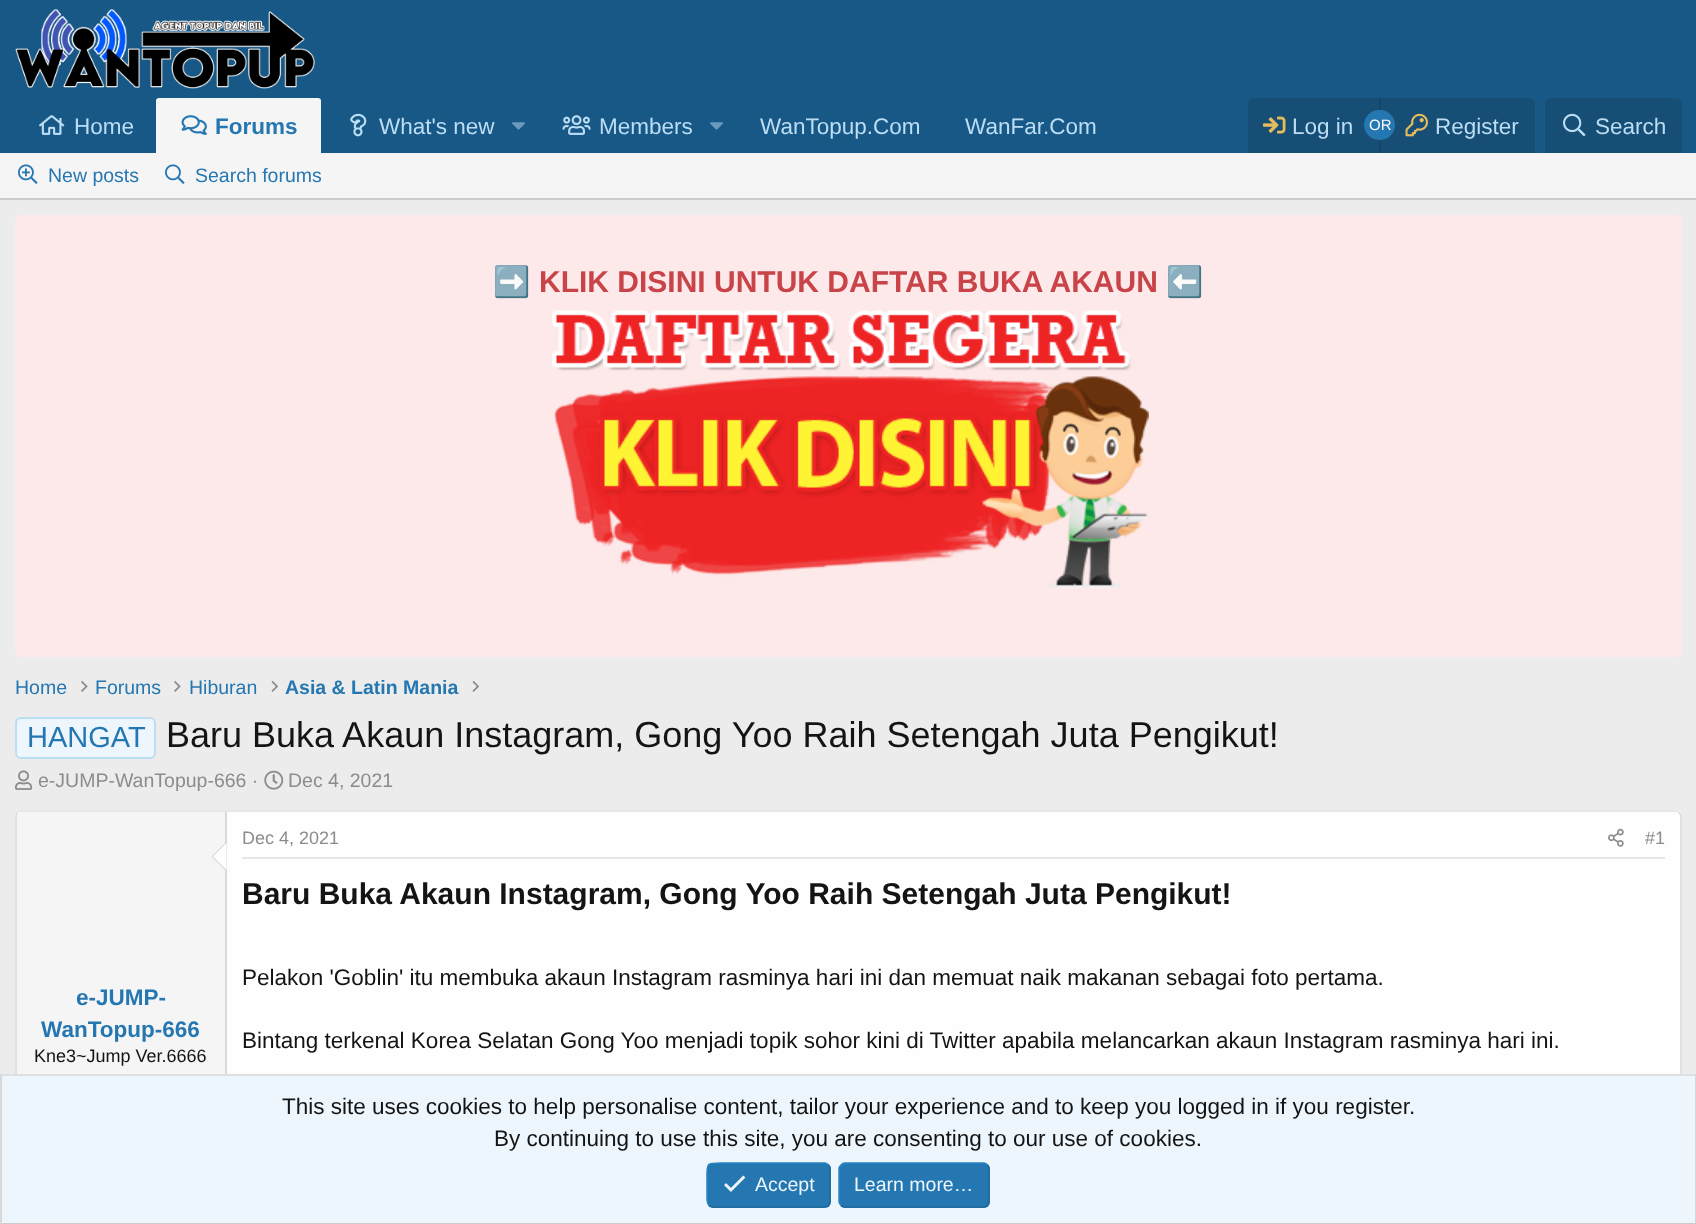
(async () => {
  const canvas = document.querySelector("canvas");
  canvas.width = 1696;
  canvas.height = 1224;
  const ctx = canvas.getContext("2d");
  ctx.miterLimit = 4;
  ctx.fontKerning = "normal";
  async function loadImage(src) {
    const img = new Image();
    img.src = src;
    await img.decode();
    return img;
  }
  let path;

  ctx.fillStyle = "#ececec";
  ctx.fillRect(0, 0, 1696, 1224);
  ctx.fillStyle = "#185886";
  ctx.fillRect(0, 0, 1696, 153);
  ctx.drawImage(await loadImage("img/1.png"), 15, 9, 300, 80);
  ctx.drawImage(await loadImage("img/2.png"), 39, 115, 26, 20);
  ctx.fillStyle = "#f5f5f5";
  ctx.beginPath();
  ctx.roundRect(156, 98, 165, 55, [3, 3, 0, 0]);
  ctx.fill();
  ctx.drawImage(await loadImage("img/3.png"), 181, 115, 26, 20);
  ctx.drawImage(await loadImage("img/4.png"), 350, 113, 17, 24);
  ctx.drawImage(await loadImage("img/5.png"), 512, 122, 13, 8);
  ctx.drawImage(await loadImage("img/6.png"), 562, 115, 29, 20);
  ctx.drawImage(await loadImage("img/5.png"), 710, 122, 13, 8);
  ctx.fillStyle = "#174e75";
  ctx.beginPath();
  ctx.roundRect(1248, 98, 287, 55, [6, 6, 0, 0]);
  ctx.fill();
  ctx.drawImage(await loadImage("img/7.png"), 1263, 116, 23, 18);
  ctx.fillStyle = "#174566";
  ctx.fillRect(1379, 98, 2, 55);
  ctx.fillStyle = "#2577b1";
  ctx.beginPath();
  ctx.roundRect(1364, 110, 31, 30, 15);
  ctx.fill();
  ctx.drawImage(await loadImage("img/8.png"), 1405, 113, 23, 24);
  ctx.fillStyle = "#174e75";
  ctx.beginPath();
  ctx.roundRect(1545, 98, 137, 55, [6, 6, 0, 0]);
  ctx.fill();
  ctx.drawImage(await loadImage("img/9.png"), 1563, 113, 23, 24);
  ctx.fillStyle = "#f5f5f5";
  ctx.fillRect(0, 153, 1696, 45);
  ctx.fillStyle = "#cbcbcb";
  ctx.fillRect(0, 198, 1696, 2);
  ctx.drawImage(await loadImage("img/10.png"), 18, 164, 20, 20);
  ctx.drawImage(await loadImage("img/11.png"), 165, 164, 20, 20);
  ctx.fillStyle = "#fde9e9";
  ctx.beginPath();
  ctx.roundRect(15, 215, 1667, 442, 6);
  ctx.fill();
  ctx.drawImage(await loadImage("img/12.png"), 552, 310, 597, 278);
  ctx.drawImage(await loadImage("img/13.png"), 81, 681, 7, 11);
  ctx.drawImage(await loadImage("img/13.png"), 174, 681, 7, 11);
  ctx.drawImage(await loadImage("img/14.png"), 271, 681, 7, 11);
  ctx.drawImage(await loadImage("img/14.png"), 472, 681, 7, 11);
  ctx.fillStyle = "#edf6fd";
  ctx.beginPath();
  ctx.roundRect(16, 718, 139, 40, 5);
  ctx.fill();
  ctx.strokeStyle = "#bcdef5";
  ctx.lineWidth = 2;
  ctx.stroke();
  ctx.drawImage(await loadImage("img/15.png"), 15, 770, 18, 20);
  ctx.drawImage(await loadImage("img/16.png"), 264, 770, 20, 20);
  ctx.fillStyle = "#fefefe";
  ctx.beginPath();
  ctx.roundRect(15, 810, 1667, 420, 6);
  ctx.fill();
  path = new Path2D("M17.5 812.5C18.5 811.5 19.5 811 21 811H1675.5C1677 811 1678 811.5 1679 812.5");
  ctx.strokeStyle = "#dfdfdf";
  ctx.lineWidth = 1.5;
  ctx.stroke(path);
  path = new Path2D("M1679 812.5C1680 813.5 1681 814.5 1681 816V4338C1681 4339.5 1680 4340.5 1679 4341.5");
  ctx.strokeStyle = "#d8d8d8";
  ctx.stroke(path);
  path = new Path2D("M17.5 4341.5C16.5 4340.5 16 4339.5 16 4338V816C16 814.5 16.5 813.5 17.5 812.5");
  ctx.stroke(path);
  ctx.fillStyle = "#f5f5f5";
  path = new Path2D("M22 812H227V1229H22C19 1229 17 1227 17 1224V817C17 814 19 812 22 812Z");
  ctx.fill(path);
  ctx.fillStyle = "#d8d8d8";
  ctx.fillRect(225, 812, 2, 262);
  path = new Path2D("M226.5 841.5V871.5L211.5 856.5Z");
  ctx.fill(path);
  ctx.fillStyle = "#fefefe";
  path = new Path2D("M226.5 843V870L213 856.5Z");
  ctx.fill(path);
  ctx.fillStyle = "#e7e7e7";
  ctx.fillRect(242, 857, 1423, 2);
  ctx.drawImage(await loadImage("img/17.png"), 1608, 828, 16, 19);
  for (const [x, y, w, h, color] of [
    [2, 1076, 1693, 147, "#edf6fd"],
    [0, 1074, 1696, 2, "#dfdfdf"],
    [1695, 1074, 1, 150, "#d8d8d8"],
    [0, 1223, 1696, 1, "#cbcbcb"],
    [0, 1074, 2, 150, "#d8d8d8"],
  ]) {
    ctx.fillStyle = color;
    ctx.fillRect(x, y, w, h);
  }
  ctx.fillStyle = "#2577b1";
  ctx.beginPath();
  ctx.roundRect(707, 1163, 124, 45, 6);
  ctx.fill();
  path = new Path2D("M828.5 1165C831 1167 830 1171 830 1174V1185C830 1210.5 833.5 1207 806 1207H712.5C711 1206.5 710 1206 709 1205");
  ctx.strokeStyle = "#21699c";
  ctx.stroke(path);
  path = new Path2D("M709 1205C706.5 1203 707 1199 707 1196V1185C707 1159.5 704 1163 731 1163H825C826.5 1163.5 827.5 1164 828.5 1165");
  ctx.strokeStyle = "#2985c6";
  ctx.stroke(path);
  ctx.drawImage(await loadImage("img/18.png"), 724, 1175, 22, 17);
  ctx.beginPath();
  ctx.roundRect(839, 1163, 151, 45, 6);
  ctx.fill();
  path = new Path2D("M987.5 1165C988.5 1166 989 1167 989 1168.5V1201.5C989 1203 988.5 1204 987.5 1205C986.5 1206 985.5 1207 984 1207H844.5C843 1207 842 1206 841 1205");
  ctx.strokeStyle = "#21699c";
  ctx.stroke(path);
  path = new Path2D("M841 1205C840 1204 839 1203 839 1201.5V1168.5C839 1167 840 1166 841 1165C842 1164 843 1163 844.5 1163H984C985.5 1163 986.5 1164 987.5 1165");
  ctx.strokeStyle = "#2985c6";
  ctx.stroke(path);
  ctx.font = "22.5px Liberation Sans";
  ctx.fillStyle = "#bcdef5";
  ctx.fillText("Home", 74, 134);
  ctx.font = "bold 22.5px Liberation Sans";
  ctx.fillStyle = "#2577b1";
  ctx.fillText("Forums", 215, 134);
  ctx.font = "22.5px Liberation Sans";
  ctx.fillStyle = "#bcdef5";
  for (const [text, x, y] of [
    ["What's new", 379, 134],
    ["Members", 599, 134],
    ["WanTopup.Com", 760, 134],
    ["WanFar.Com", 965, 134],
    ["Log in", 1292, 134],
  ]) {
    ctx.fillText(text, x, y);
  }
  ctx.font = "15px Liberation Sans";
  ctx.fillStyle = "#fefefe";
  ctx.fillText("OR", 1369, 130);
  ctx.font = "22.5px Liberation Sans";
  ctx.fillStyle = "#bcdef5";
  ctx.fillText("Register", 1435, 134);
  ctx.fillText("Search", 1595, 134);
  ctx.font = "19.5px Liberation Sans";
  ctx.fillStyle = "#2577b1";
  ctx.fillText("New posts", 48, 182);
  ctx.fillText("Search forums", 195, 182);
  ctx.font = "bold 30px Noto Color Emoji";
  ctx.fillStyle = "#c84448";
  ctx.fillText("➡️", 493, 292);
  ctx.font = "bold 30px Liberation Sans";
  ctx.fillText("KLIK DISINI UNTUK DAFTAR BUKA AKAUN", 539, 292);
  ctx.font = "bold 30px Noto Color Emoji";
  ctx.fillText("⬅️", 1166, 292);
  ctx.font = "19.5px Liberation Sans";
  ctx.fillStyle = "#2577b1";
  for (const [text, x, y] of [
    ["Home", 15, 694],
    ["Forums", 95, 694],
    ["Hiburan", 189, 694],
  ]) {
    ctx.fillText(text, x, y);
  }
  ctx.font = "bold 19.5px Liberation Sans";
  ctx.fillText("Asia & Latin Mania", 285, 694);
  ctx.font = "29px Liberation Sans";
  ctx.fillText("HANGAT", 27, 747);
  ctx.font = "36px Liberation Sans";
  ctx.fillStyle = "#141414";
  ctx.fillText("Baru Buka Akaun Instagram, Gong Yoo Raih Setengah Juta Pengikut!", 166, 747);
  ctx.font = "19.5px Liberation Sans";
  ctx.fillStyle = "#8c8c8c";
  ctx.fillText("e-JUMP-WanTopup-666 ·", 38, 787);
  ctx.fillText("Dec 4, 2021", 288, 787);
  ctx.font = "bold 22.5px Liberation Sans";
  ctx.fillStyle = "#2577b1";
  ctx.fillText("e-JUMP-", 76, 1005);
  ctx.fillText("WanTopup-666", 41, 1037);
  ctx.font = "18px Liberation Sans";
  ctx.fillStyle = "#141414";
  ctx.fillText("Kne3~Jump Ver.6666", 34, 1062);
  ctx.fillStyle = "#8c8c8c";
  ctx.fillText("Dec 4, 2021", 242, 844);
  ctx.fillText("#1", 1645, 844);
  ctx.font = "bold 30px Liberation Sans";
  ctx.fillStyle = "#141414";
  ctx.fillText("Baru Buka Akaun Instagram, Gong Yoo Raih Setengah Juta Pengikut!", 242, 904);
  ctx.font = "22.5px Liberation Sans";
  for (const [text, x, y] of [
    ["Pelakon 'Goblin' itu membuka akaun Instagram rasminya hari ini dan memuat naik makanan sebagai foto pertama.", 242, 985],
    ["Bintang terkenal Korea Selatan Gong Yoo menjadi topik sohor kini di Twitter apabila melancarkan akaun Instagram rasminya hari ini.", 242, 1048],
    ["This site uses cookies to help personalise content, tailor your experience and to keep you logged in if you register.", 282, 1114],
    ["By continuing to use this site, you are consenting to our use of cookies.", 494, 1146],
  ]) {
    ctx.fillText(text, x, y);
  }
  ctx.font = "19.5px Liberation Sans";
  ctx.fillStyle = "#edf6fd";
  ctx.fillText("Accept", 755, 1191);
  ctx.fillText("Learn more…", 854, 1191);
})();
